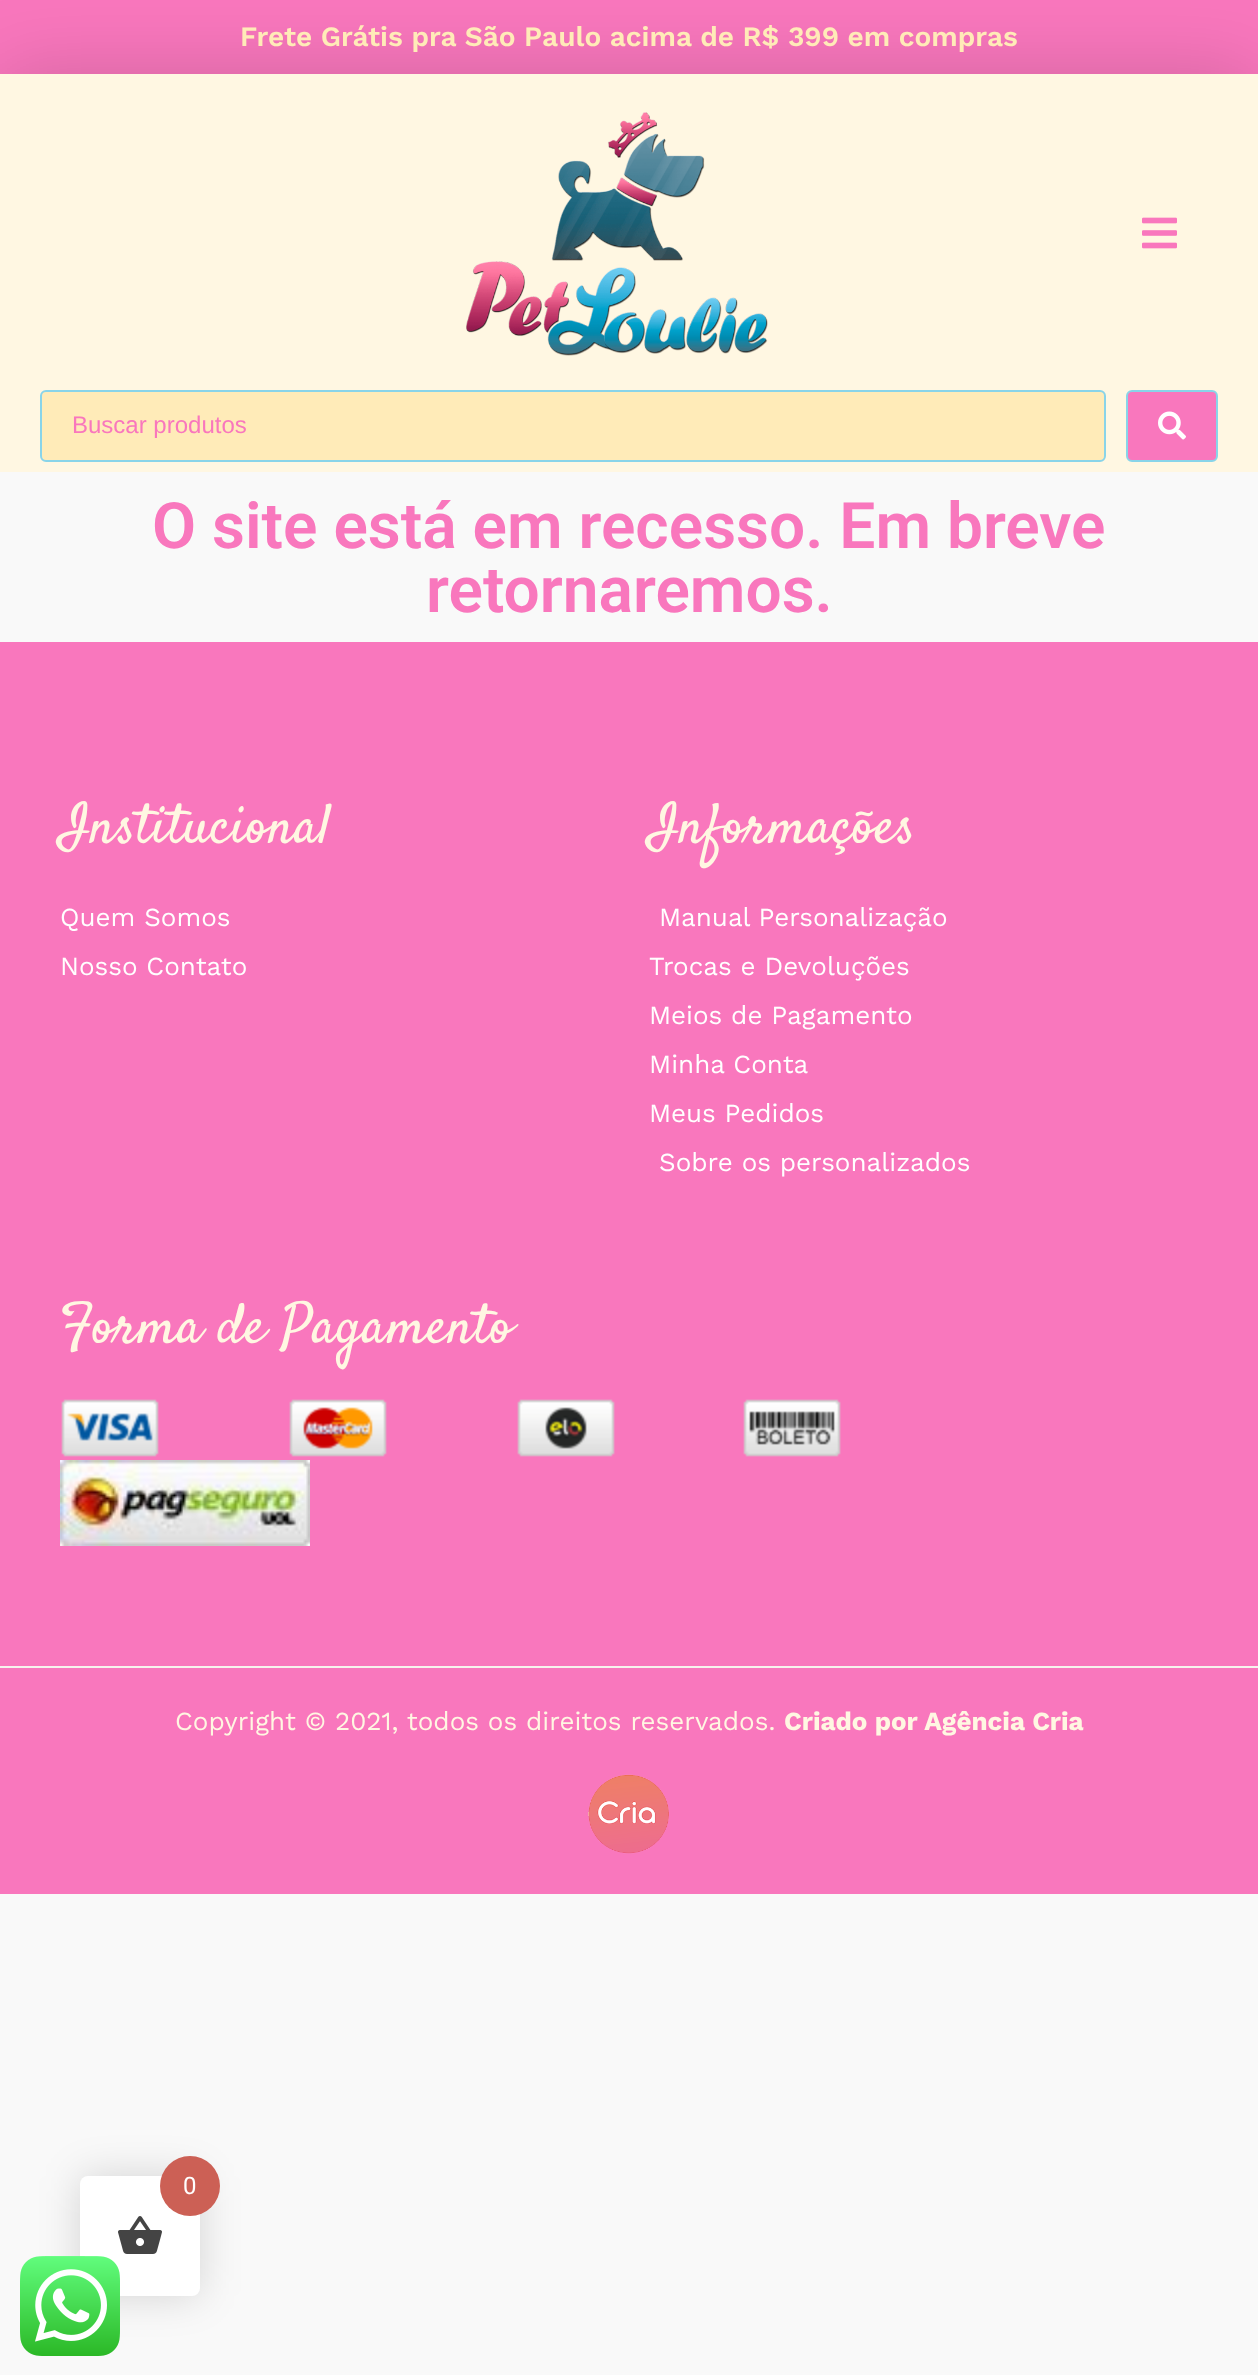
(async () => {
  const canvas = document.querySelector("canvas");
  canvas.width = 1258;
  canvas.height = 2375;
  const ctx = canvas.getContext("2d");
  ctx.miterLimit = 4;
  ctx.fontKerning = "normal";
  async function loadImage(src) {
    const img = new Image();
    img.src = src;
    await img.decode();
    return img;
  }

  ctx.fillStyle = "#f9f9f9";
  ctx.fillRect(0, 0, 1258, 2375);
  ctx.fillStyle = "#f977bd";
  ctx.fillRect(0, 0, 1258, 74);
  ctx.fillStyle = "rgba(0, 0, 0, 0.16)";
  ctx.filter = "blur(40px)";
  ctx.beginPath();
  ctx.rect(0, 74, 1258, 306);
  ctx.fill();
  ctx.filter = "none";
  ctx.fillStyle = "#fff7e2";
  ctx.fillRect(0, 74, 1258, 398);
  ctx.drawImage(await loadImage("img/1.png"), 466, 112, 302, 244);
  ctx.drawImage(await loadImage("img/2.png"), 1142, 217, 35, 32);
  ctx.fillStyle = "#ffebb8";
  ctx.beginPath();
  ctx.roundRect(41, 391, 1064, 70, 5);
  ctx.fill();
  ctx.strokeStyle = "#89d4e9";
  ctx.lineWidth = 2;
  ctx.stroke();
  ctx.fillStyle = "#f977bd";
  ctx.beginPath();
  ctx.roundRect(1127, 391, 90, 70, 5);
  ctx.fill();
  ctx.stroke();
  ctx.drawImage(await loadImage("img/3.png"), 1158, 411, 28, 29);
  ctx.fillRect(0, 642, 1258, 1024);
  ctx.drawImage(await loadImage("img/4.png"), 61, 1399, 98, 58);
  ctx.drawImage(await loadImage("img/5.png"), 289, 1399, 98, 58);
  ctx.drawImage(await loadImage("img/6.png"), 517, 1399, 98, 58);
  ctx.drawImage(await loadImage("img/7.png"), 743, 1399, 98, 58);
  ctx.drawImage(await loadImage("img/8.png"), 60, 1460, 250, 86);
  ctx.fillRect(0, 1668, 1258, 226);
  ctx.fillStyle = "#f7f3ed";
  ctx.fillRect(0, 1666, 1258, 2);
  ctx.drawImage(await loadImage("img/9.png"), 588, 1774, 82, 80);
  ctx.fillStyle = "rgba(0, 0, 0, 0.15)";
  ctx.filter = "blur(20px)";
  ctx.beginPath();
  ctx.roundRect(80, 2176, 120, 120, 8);
  ctx.fill();
  ctx.filter = "none";
  ctx.fillStyle = "#ffffff";
  ctx.beginPath();
  ctx.roundRect(80, 2176, 120, 120, 8);
  ctx.fill();
  ctx.fillStyle = "#cc6055";
  ctx.beginPath();
  ctx.arc(190, 2186, 30, 0, Math.PI * 2);
  ctx.fill();
  ctx.drawImage(await loadImage("img/10.png"), 118, 2216, 44, 38);
  ctx.drawImage(await loadImage("img/11.png"), 20, 2256, 100, 100);
  ctx.font = "600 28px Work Sans";
  ctx.fillStyle = "#ffebb8";
  ctx.fillText("Frete Grátis pra São Paulo acima de R$ 399 em compras", 240, 46);
  ctx.font = "24px Liberation Sans";
  ctx.fillStyle = "#f977bd";
  ctx.fillText("Buscar produtos", 72, 433);
  ctx.font = "600 64px Roboto";
  ctx.fillText("O site está em recesso. Em breve", 152, 548);
  ctx.fillText("retornaremos.", 426, 612);
  ctx.font = "56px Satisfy";
  ctx.fillStyle = "#fff7e2";
  ctx.fillText("Institucional", 60, 842);
  ctx.font = "26px Work Sans";
  ctx.fillStyle = "#ffffff";
  ctx.fillText("Quem Somos", 60, 926);
  ctx.fillText("Nosso Contato", 60, 975);
  ctx.font = "56px Satisfy";
  ctx.fillStyle = "#fff7e2";
  ctx.fillText("Informações", 649, 842);
  ctx.font = "26px Work Sans";
  ctx.fillStyle = "#ffffff";
  for (const [text, x, y] of [
    ["Manual Personalização", 659, 926],
    ["Trocas e Devoluções", 649, 975],
    ["Meios de Pagamento", 649, 1024],
    ["Minha Conta", 649, 1073],
    ["Meus Pedidos", 649, 1122],
    ["Sobre os personalizados", 659, 1171],
  ]) {
    ctx.fillText(text, x, y);
  }
  ctx.font = "56px Satisfy";
  ctx.fillStyle = "#fff7e2";
  ctx.fillText("Forma de Pagamento", 60, 1342);
  ctx.font = "26px Work Sans";
  ctx.fillText("Copyright © 2021, todos os direitos reservados.", 175, 1730);
  ctx.font = "bold 26px Work Sans";
  ctx.fillText("Criado por Agência Cria", 784, 1730);
  ctx.font = "24px Roboto";
  ctx.fillStyle = "#ffffff";
  ctx.fillText("0", 183, 2194);
})();
